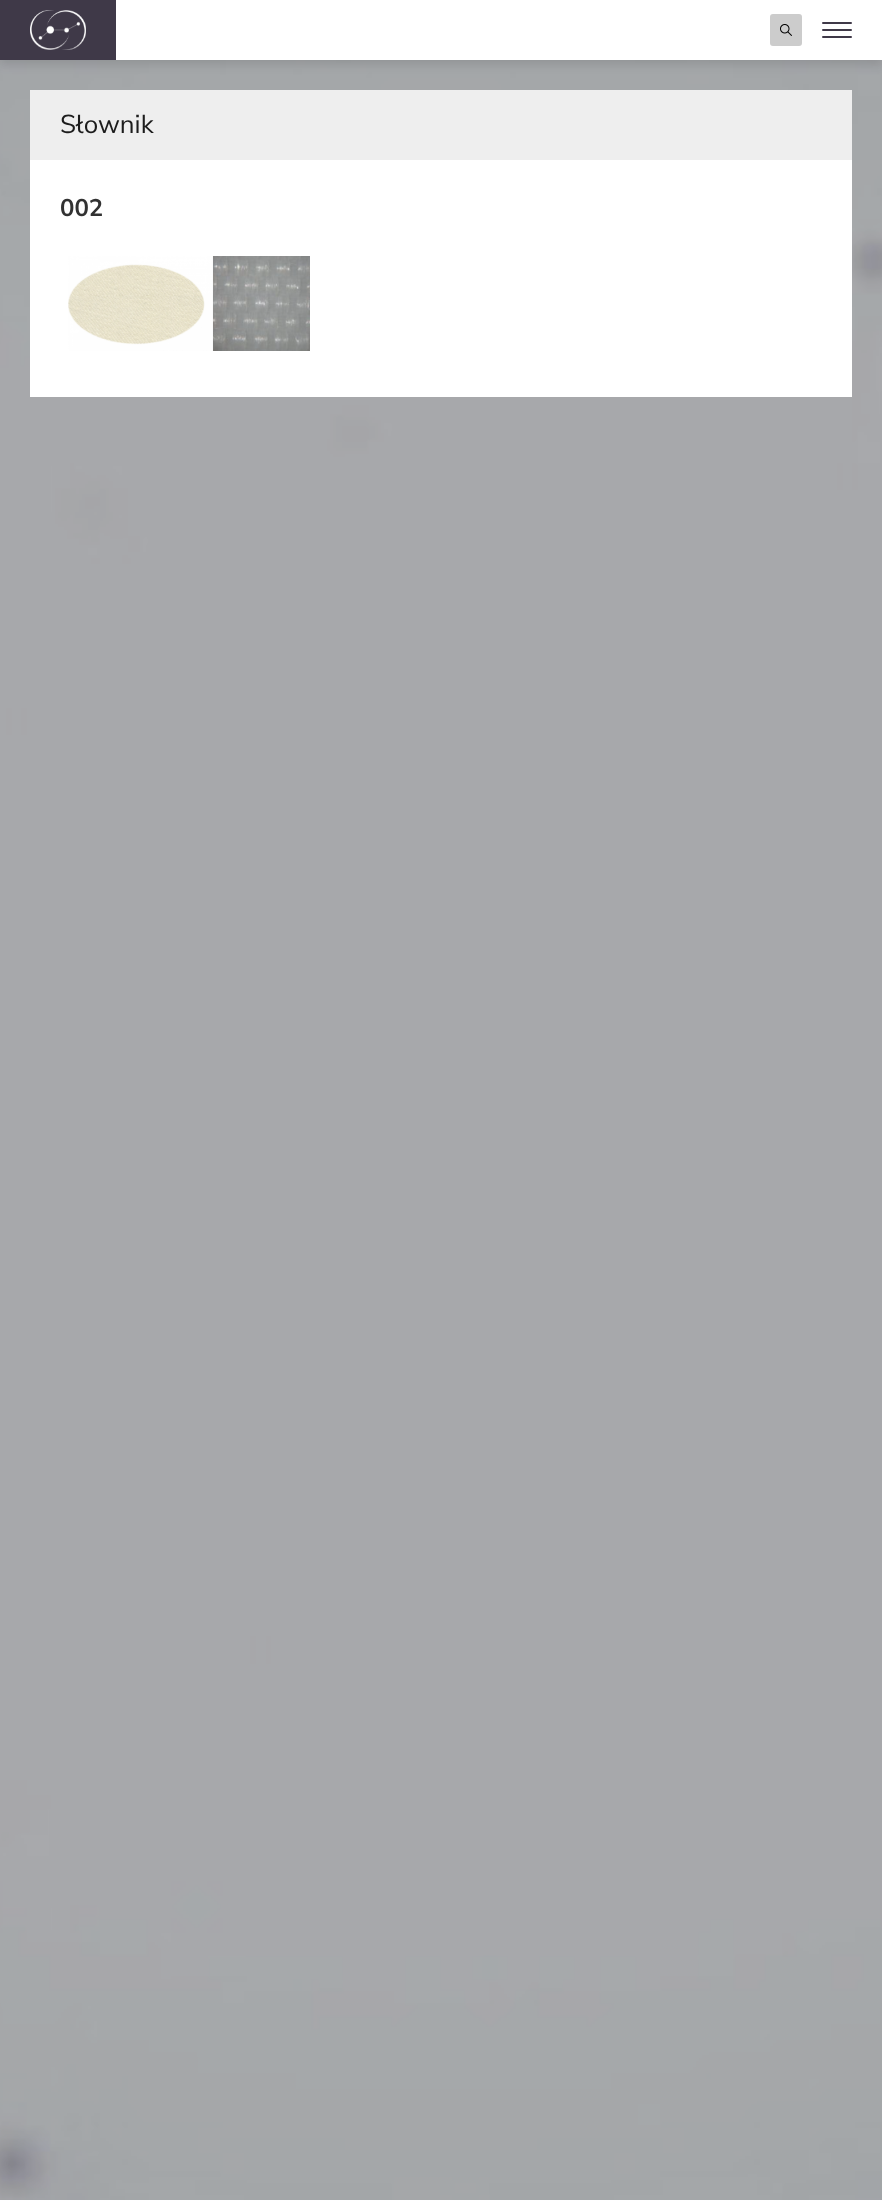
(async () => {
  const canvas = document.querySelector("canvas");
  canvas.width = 882;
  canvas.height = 2200;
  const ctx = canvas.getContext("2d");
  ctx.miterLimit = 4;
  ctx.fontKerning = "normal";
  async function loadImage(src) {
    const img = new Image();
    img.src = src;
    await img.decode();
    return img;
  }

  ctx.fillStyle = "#ffffff";
  ctx.fillRect(0, 0, 882, 2200);
  ctx.drawImage(await loadImage("img/3.png"), 0, 60, 882, 2140);
  ctx.fillStyle = "rgba(0, 0, 0, 0.1)";
  ctx.filter = "blur(5px)";
  ctx.beginPath();
  ctx.rect(0, 5, 882, 60);
  ctx.fill();
  ctx.filter = "none";
  ctx.fillStyle = "#ffffff";
  ctx.fillRect(116, 0, 766, 60);
  ctx.fillStyle = "#3f3948";
  ctx.fillRect(0, 0, 116, 60);
  ctx.drawImage(await loadImage("img/1.png"), 30, 10, 56, 40);
  ctx.fillStyle = "#cccccc";
  ctx.beginPath();
  ctx.roundRect(770, 14, 32, 32, 3);
  ctx.fill();
  ctx.drawImage(await loadImage("img/2.png"), 780, 24, 12, 12);
  ctx.fillStyle = "#3f3948";
  ctx.beginPath();
  ctx.roundRect(822, 22, 30, 2, 1);
  ctx.fill();
  ctx.beginPath();
  ctx.roundRect(822, 29, 30, 2, 1);
  ctx.fill();
  ctx.beginPath();
  ctx.roundRect(822, 36, 30, 2, 1);
  ctx.fill();
  ctx.fillStyle = "#eeeeee";
  ctx.fillRect(30, 90, 822, 70);
  ctx.fillStyle = "#ffffff";
  ctx.fillRect(30, 160, 822, 237);
  ctx.drawImage(await loadImage("img/4.png"), 68, 256, 242, 95);
  ctx.font = "26px Nunito Sans";
  ctx.fillStyle = "#1c1c1c";
  ctx.fillText("Słownik", 60, 133);
  ctx.font = "bold 24px Nunito Sans";
  ctx.fillStyle = "#323232";
  ctx.fillText("002", 60, 216);
})();
